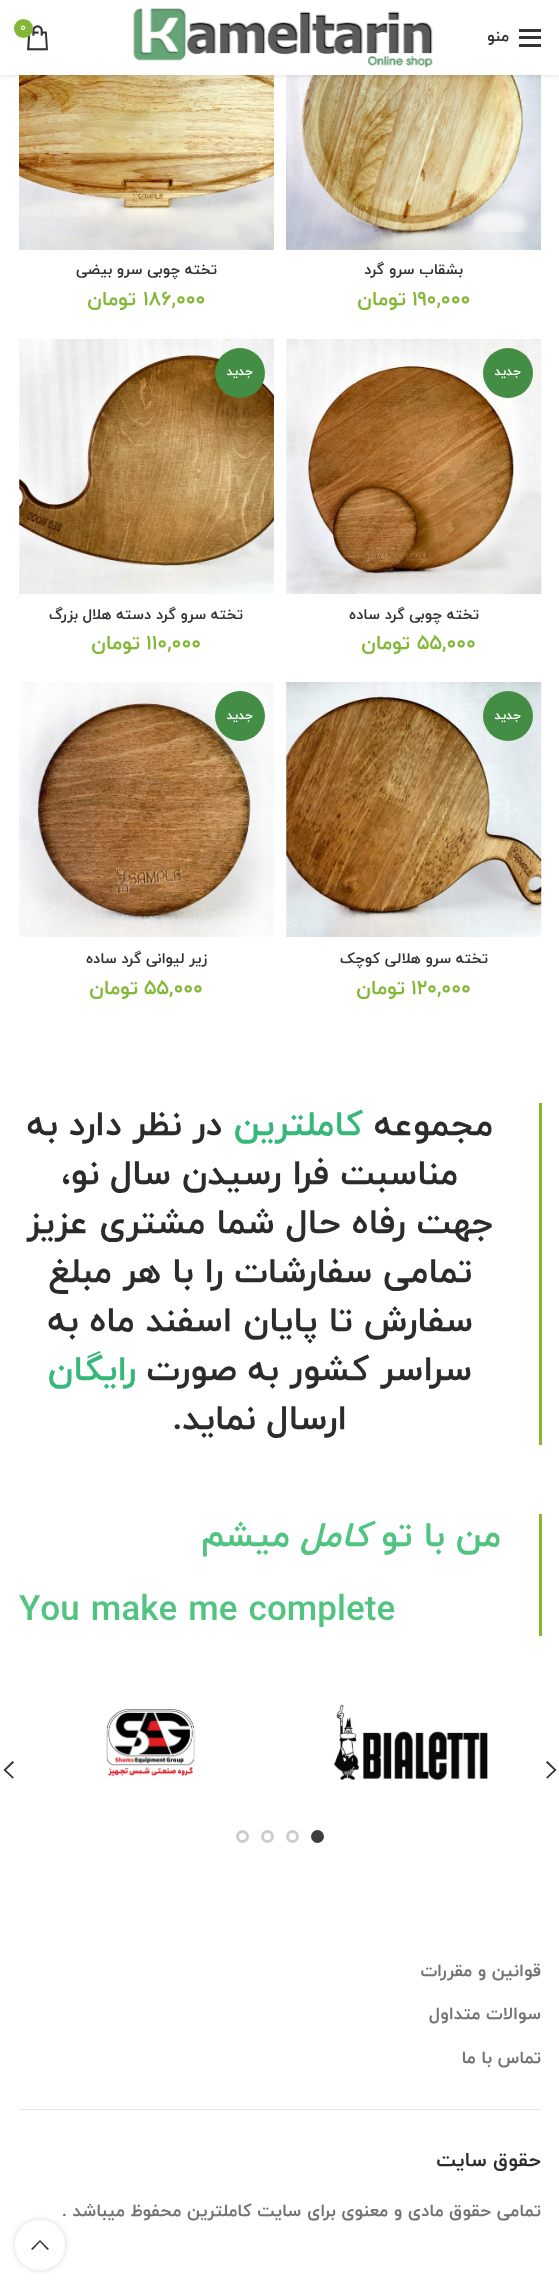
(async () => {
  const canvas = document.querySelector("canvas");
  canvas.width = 559;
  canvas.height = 2284;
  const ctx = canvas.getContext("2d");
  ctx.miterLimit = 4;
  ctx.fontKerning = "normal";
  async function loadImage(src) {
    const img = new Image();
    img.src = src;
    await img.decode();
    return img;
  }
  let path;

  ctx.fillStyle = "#ffffff";
  ctx.fillRect(0, 0, 559, 2284);
  ctx.drawImage(await loadImage("img/3.png"), 286, 75, 255, 175);
  ctx.drawImage(await loadImage("img/4.png"), 19, 75, 255, 175);
  ctx.fillStyle = "rgba(0, 0, 0, 0.1)";
  ctx.filter = "blur(2px)";
  ctx.beginPath();
  ctx.rect(0, 1, 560, 75);
  ctx.fill();
  ctx.filter = "none";
  ctx.fillStyle = "#ffffff";
  ctx.fillRect(0, 0, 559, 75);
  ctx.drawImage(await loadImage("img/1.png"), 133, 8, 300, 60);
  ctx.drawImage(await loadImage("img/2.png"), 27, 25, 21, 26);
  ctx.fillStyle = "#83b735";
  ctx.beginPath();
  ctx.arc(23.5, 28.5, 9.5, 0, Math.PI * 2);
  ctx.fill();
  for (const [x, y, w, h, color] of [
    [519, 36, 22, 3, "#333333"],
    [519, 29, 22, 3, "#333333"],
    [519, 44, 22, 3, "#333333"],
  ]) {
    ctx.fillStyle = color;
    ctx.fillRect(x, y, w, h);
  }
  ctx.drawImage(await loadImage("img/5.png"), 286, 339, 256, 255);
  ctx.fillStyle = "#438e44";
  ctx.beginPath();
  ctx.arc(508, 373, 25, 0, Math.PI * 2);
  ctx.fill();
  ctx.drawImage(await loadImage("img/6.png"), 19, 339, 255, 255);
  ctx.beginPath();
  ctx.arc(240, 373, 25, 0, Math.PI * 2);
  ctx.fill();
  ctx.drawImage(await loadImage("img/7.png"), 286, 682, 256, 255);
  ctx.beginPath();
  ctx.arc(508, 716, 25, 0, Math.PI * 2);
  ctx.fill();
  ctx.drawImage(await loadImage("img/8.png"), 19, 682, 255, 255);
  ctx.beginPath();
  ctx.arc(240, 716, 25, 0, Math.PI * 2);
  ctx.fill();
  ctx.fillStyle = "#83b735";
  ctx.fillRect(539, 1103, 3, 342);
  ctx.fillRect(539, 1514, 3, 122);
  ctx.drawImage(await loadImage("img/9.png"), 334, 1705, 154, 76);
  ctx.drawImage(await loadImage("img/10.png"), 106, 1709, 89, 68);
  ctx.fillStyle = "#333333";
  path = new Path2D("M547.5 1761L556.5 1770L547.5 1778.5L546 1777.5L554 1770L546 1762.5Z");
  ctx.fill(path);
  path = new Path2D("M14 1762.5L6 1770L14 1777.5L12.5 1778.5L3.5 1770L12.5 1761Z");
  ctx.fill(path);
  ctx.fillStyle = "#3e3e3e";
  ctx.beginPath();
  ctx.arc(317.5, 1836.5, 5, 0, Math.PI * 2);
  ctx.fill();
  ctx.strokeStyle = "#3e3e3e";
  ctx.lineWidth = 3;
  ctx.stroke();
  ctx.beginPath();
  ctx.arc(292.5, 1836.5, 5, 0, Math.PI * 2);
  ctx.strokeStyle = "#cccccc";
  ctx.stroke();
  ctx.beginPath();
  ctx.arc(267.5, 1836.5, 5, 0, Math.PI * 2);
  ctx.stroke();
  ctx.beginPath();
  ctx.arc(242.5, 1836.5, 5, 0, Math.PI * 2);
  ctx.stroke();
  ctx.fillStyle = "#e6e6e6";
  ctx.fillRect(19, 2109, 522, 1);
  ctx.save();
  path = new Path2D("M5 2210H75V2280H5ZM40 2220C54 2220 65 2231 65 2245C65 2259 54 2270 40 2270C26 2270 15 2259 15 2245C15 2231 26 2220 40 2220Z");
  ctx.clip(path, "evenodd");
  ctx.fillStyle = "rgba(0, 0, 0, 0.17)";
  ctx.filter = "blur(3px)";
  ctx.beginPath();
  ctx.roundRect(15, 2220, 50, 50, 25);
  ctx.fill();
  ctx.filter = "none";
  ctx.restore();
  ctx.font = "12.5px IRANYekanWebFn";
  ctx.fillStyle = "#ffffff";
  ctx.fillText("0", 20, 31);
  ctx.direction = "rtl";
  ctx.font = "bold 16px IRANYekanWebFn";
  ctx.fillStyle = "#333333";
  ctx.fillText("منو", 509, 41);
  ctx.font = "bold 15px IRANYekanWebFn";
  ctx.fillText("بشقاب سرو گرد", 463, 274);
  ctx.direction = "ltr";
  ctx.font = "bold 20px IRANYekanWebFn";
  ctx.fillStyle = "#83b735";
  ctx.fillText("190,000", 412, 305);
  ctx.direction = "rtl";
  ctx.fillText("تومان", 406, 305);
  ctx.font = "bold 15px IRANYekanWebFn";
  ctx.fillStyle = "#333333";
  ctx.fillText("تخته چوبی سرو بیضی", 217, 274);
  ctx.direction = "ltr";
  ctx.font = "bold 20px IRANYekanWebFn";
  ctx.fillStyle = "#83b735";
  ctx.fillText("186,000", 143, 305);
  ctx.direction = "rtl";
  ctx.fillText("تومان", 136, 305);
  ctx.font = "bold 12.5px IRANYekanWebFn";
  ctx.fillStyle = "#ffffff";
  ctx.fillText("جدید", 521, 375);
  ctx.font = "bold 15px IRANYekanWebFn";
  ctx.fillStyle = "#333333";
  ctx.fillText("تخته چوبی گرد ساده", 479, 619);
  ctx.direction = "ltr";
  ctx.font = "bold 20px IRANYekanWebFn";
  ctx.fillStyle = "#83b735";
  ctx.fillText("55,000", 417, 649);
  ctx.direction = "rtl";
  ctx.fillText("تومان", 410, 649);
  ctx.font = "bold 12.5px IRANYekanWebFn";
  ctx.fillStyle = "#ffffff";
  ctx.fillText("جدید", 253, 375);
  ctx.font = "bold 15px IRANYekanWebFn";
  ctx.fillStyle = "#333333";
  ctx.fillText("تخته سرو گرد دسته هلال بزرگ", 243, 619);
  ctx.direction = "ltr";
  ctx.font = "bold 20px IRANYekanWebFn";
  ctx.fillStyle = "#83b735";
  ctx.fillText("110,000", 146, 649);
  ctx.direction = "rtl";
  ctx.fillText("تومان", 140, 649);
  ctx.font = "bold 12.5px IRANYekanWebFn";
  ctx.fillStyle = "#ffffff";
  ctx.fillText("جدید", 521, 719);
  ctx.font = "bold 15px IRANYekanWebFn";
  ctx.fillStyle = "#333333";
  ctx.fillText("تخته سرو هلالی کوچک", 488, 963);
  ctx.direction = "ltr";
  ctx.font = "bold 20px IRANYekanWebFn";
  ctx.fillStyle = "#83b735";
  ctx.fillText("120,000", 411, 994);
  ctx.direction = "rtl";
  ctx.fillText("تومان", 405, 994);
  ctx.font = "bold 12.5px IRANYekanWebFn";
  ctx.fillStyle = "#ffffff";
  ctx.fillText("جدید", 253, 719);
  ctx.font = "bold 15px IRANYekanWebFn";
  ctx.fillStyle = "#333333";
  ctx.fillText("زیر لیوانی گرد ساده", 207, 963);
  ctx.direction = "ltr";
  ctx.font = "bold 20px IRANYekanWebFn";
  ctx.fillStyle = "#83b735";
  ctx.fillText("55,000", 144, 994);
  ctx.direction = "rtl";
  ctx.fillText("تومان", 138, 994);
  ctx.font = "bold 35px IRANYekanWebFn";
  ctx.fillStyle = "#2d2a2a";
  ctx.fillText("مجموعه", 493, 1135);
  ctx.fillStyle = "#35b879";
  ctx.fillText("کاملترین", 363, 1135);
  ctx.fillStyle = "#2d2a2a";
  for (const [text, x, y] of [
    ["در نظر دارد به", 222, 1135],
    ["مناسبت فرا رسیدن سال نو،", 458, 1184],
    ["جهت رفاه حال شما مشتری عزیز", 493, 1233],
    ["تمامی سفارشات را با هر مبلغ", 472, 1282],
    ["سفارش تا پایان اسفند ماه به", 473, 1331],
    ["سراسر کشور به صورت", 472, 1380],
  ]) {
    ctx.fillText(text, x, y);
  }
  ctx.fillStyle = "#35b879";
  ctx.fillText("رایگان", 136, 1380);
  ctx.fillStyle = "#2d2a2a";
  ctx.fillText("ارسال نماید.", 347, 1429);
  ctx.fillStyle = "#51c481";
  ctx.fillText("من با تو", 501, 1546);
  ctx.font = "italic bold 35px IRANYekanWebFn";
  ctx.fillText("کامل", 370, 1546);
  ctx.font = "bold 35px IRANYekanWebFn";
  ctx.fillText("میشم", 290, 1546);
  ctx.direction = "ltr";
  ctx.fillText("You make me complete", 19, 1620);
  ctx.direction = "rtl";
  ctx.font = "bold 17.5px IRANYekanWebFn";
  ctx.fillStyle = "#727272";
  for (const [text, x, y] of [
    ["قوانین و مقررات", 541, 1976],
    ["سوالات متداول", 541, 2019],
    ["تماس با ما", 541, 2063],
  ]) {
    ctx.fillText(text, x, y);
  }
  ctx.font = "bold 20px IRANYekanWebFn";
  ctx.fillStyle = "#2d2a2a";
  ctx.fillText("حقوق سایت", 541, 2166);
  ctx.font = "bold 17.5px IRANYekanWebFn";
  ctx.fillStyle = "#727272";
  ctx.fillText("تمامی حقوق مادی و معنوی برای سایت کاملترین محفوظ میباشد .", 541, 2216);
  ctx.fillStyle = "rgba(255, 255, 255, 0.9)";
  ctx.beginPath();
  ctx.arc(40, 2245, 25, 0, Math.PI * 2);
  ctx.fill();
  ctx.fillStyle = "#333333";
  path = new Path2D("M40 2240L49 2249L47.5 2250L40 2242L32.5 2250L31 2249Z");
  ctx.fill(path);
})();
